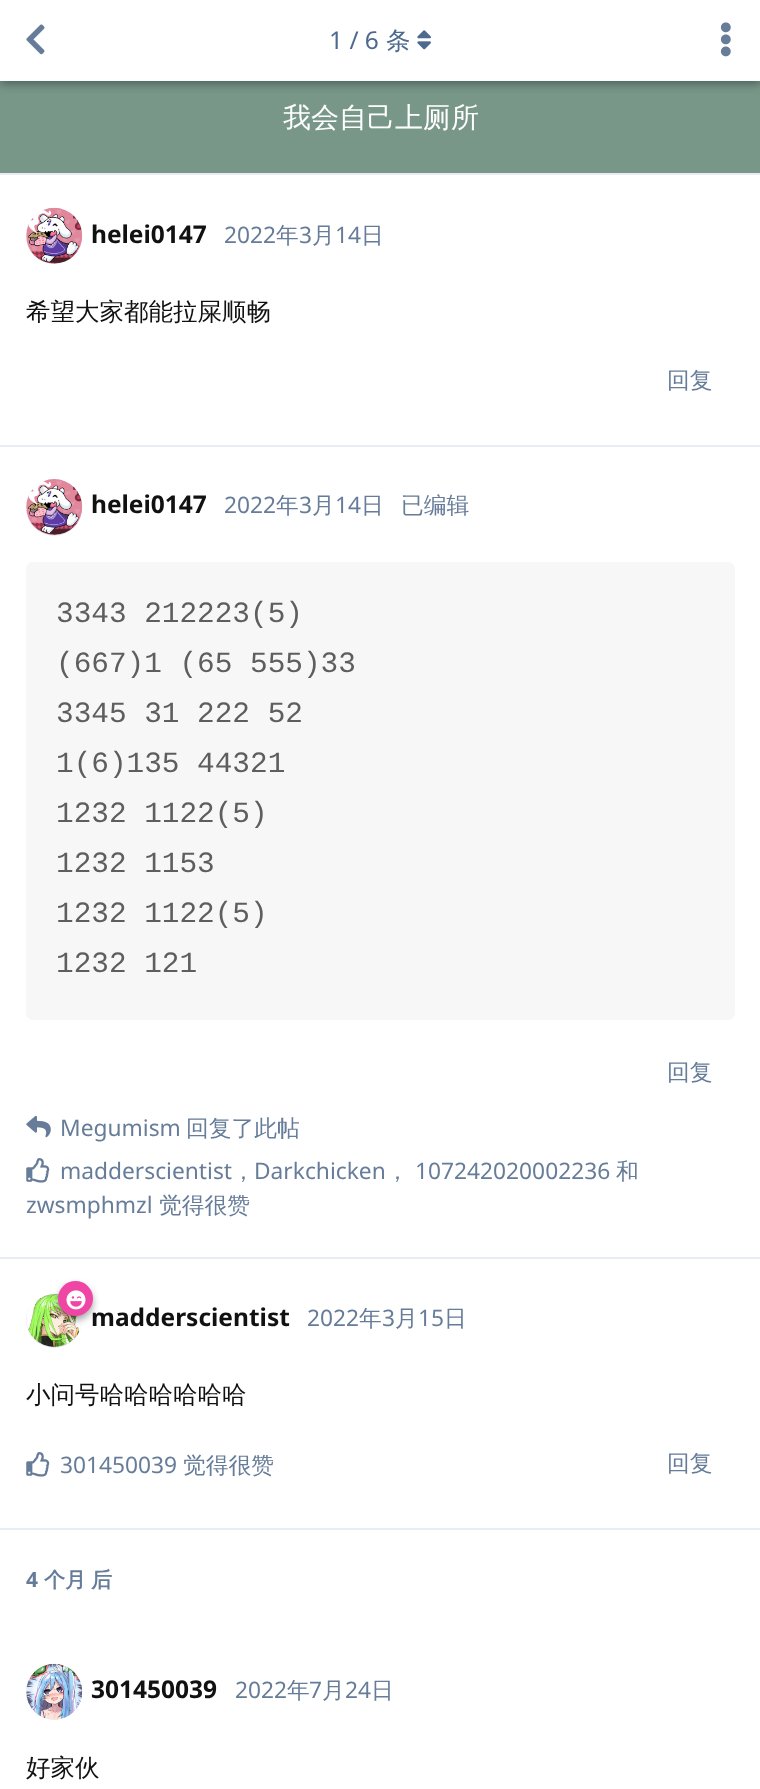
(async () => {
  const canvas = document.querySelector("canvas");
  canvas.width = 760;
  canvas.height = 1789;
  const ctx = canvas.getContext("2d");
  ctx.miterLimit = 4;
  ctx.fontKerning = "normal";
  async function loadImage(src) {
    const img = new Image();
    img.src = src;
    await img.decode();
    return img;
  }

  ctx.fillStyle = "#ffffff";
  ctx.fillRect(0, 0, 760, 1789);
  ctx.fillStyle = "#789789";
  ctx.fillRect(0, 81, 760, 92);
  ctx.fillStyle = "rgba(0, 0, 0, 0.35)";
  ctx.filter = "blur(5px)";
  ctx.beginPath();
  ctx.rect(0, 4, 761, 80);
  ctx.fill();
  ctx.filter = "none";
  ctx.fillStyle = "#ffffff";
  ctx.fillRect(0, 0, 760, 81);
  ctx.drawImage(await loadImage("img/1.png"), 26, 24, 19, 31);
  ctx.fillStyle = "#e8ecf3";
  ctx.fillRect(0, 173, 760, 2);
  ctx.drawImage(await loadImage("img/2.png"), 417, 30, 14, 20);
  ctx.drawImage(await loadImage("img/3.png"), 720, 22, 11, 35);
  ctx.fillRect(0, 445, 760, 2);
  ctx.beginPath();
  ctx.arc(54, 236, 28, 0, Math.PI * 2);
  ctx.fill();
  ctx.drawImage(await loadImage("img/4.png"), 26, 207, 57, 57);
  ctx.fillRect(0, 1257, 760, 2);
  ctx.beginPath();
  ctx.arc(54, 508, 28, 0, Math.PI * 2);
  ctx.fill();
  ctx.drawImage(await loadImage("img/5.png"), 26, 479, 57, 56);
  ctx.fillStyle = "#f7f7f7";
  ctx.beginPath();
  ctx.roundRect(26, 562, 709, 458, 7);
  ctx.fill();
  ctx.drawImage(await loadImage("img/6.png"), 26, 1115, 25, 23);
  ctx.drawImage(await loadImage("img/7.png"), 26, 1158, 24, 25);
  ctx.fillStyle = "#e8ecf3";
  ctx.fillRect(0, 1528, 760, 2);
  ctx.beginPath();
  ctx.arc(54, 1320, 28, 0, Math.PI * 2);
  ctx.fill();
  ctx.drawImage(await loadImage("img/9.png"), 26, 1292, 56, 55);
  ctx.fillStyle = "rgba(0, 0, 0, 0.35)";
  ctx.filter = "blur(3.5px)";
  ctx.beginPath();
  ctx.roundRect(58, 1285, 35, 35, 17.5);
  ctx.fill();
  ctx.filter = "none";
  ctx.drawImage(await loadImage("img/7.png"), 26, 1452, 24, 25);
  ctx.fillStyle = "#e8ecf3";
  ctx.beginPath();
  ctx.arc(54, 1692, 28, 0, Math.PI * 2);
  ctx.fill();
  ctx.drawImage(await loadImage("img/10.png"), 26, 1663, 57, 57);
  ctx.font = "24.5px Noto Sans";
  ctx.fillStyle = "#4d698e";
  ctx.fillText("1 / 6", 329, 49);
  ctx.font = "500 24.5px WenQuanYi Zen Hei";
  ctx.fillText("条", 386, 49);
  ctx.font = "bold 24.5px Noto Sans";
  ctx.fillStyle = "#111111";
  ctx.fillText("helei0147", 91, 243);
  ctx.font = "22.75px Noto Sans";
  ctx.fillStyle = "#667c99";
  ctx.fillText("2022", 224, 243);
  ctx.font = "500 22.75px WenQuanYi Zen Hei";
  ctx.fillText("年", 276, 243);
  ctx.font = "22.75px Noto Sans";
  ctx.fillText("3", 299, 243);
  ctx.font = "500 22.75px WenQuanYi Zen Hei";
  ctx.fillText("月", 312, 243);
  ctx.font = "22.75px Noto Sans";
  ctx.fillText("14", 335, 243);
  ctx.font = "500 22.75px WenQuanYi Zen Hei";
  ctx.fillText("日", 361, 243);
  ctx.font = "500 24.5px WenQuanYi Zen Hei";
  ctx.fillStyle = "#111111";
  ctx.fillText("希望大家都能拉屎顺畅", 26, 320);
  ctx.font = "500 22.75px WenQuanYi Zen Hei";
  ctx.fillStyle = "#667c99";
  ctx.fillText("回复", 667, 388);
  ctx.font = "bold 24.5px Noto Sans";
  ctx.fillStyle = "#111111";
  ctx.fillText("helei0147", 91, 513);
  ctx.font = "22.75px Noto Sans";
  ctx.fillStyle = "#667c99";
  ctx.fillText("2022", 224, 513);
  ctx.font = "500 22.75px WenQuanYi Zen Hei";
  ctx.fillText("年", 276, 513);
  ctx.font = "22.75px Noto Sans";
  ctx.fillText("3", 299, 513);
  ctx.font = "500 22.75px WenQuanYi Zen Hei";
  ctx.fillText("月", 312, 513);
  ctx.font = "22.75px Noto Sans";
  ctx.fillText("14", 335, 513);
  ctx.font = "500 22.75px WenQuanYi Zen Hei";
  ctx.fillText("日", 361, 513);
  ctx.fillText("已编辑", 401, 513);
  ctx.font = "29.4px Liberation Mono";
  ctx.fillStyle = "#5e5e5e";
  for (const [text, x, y] of [
    ["3343 212223(5)", 56, 622],
    ["(667)1 (65 555)33", 56, 672],
    ["3345 31 222 52", 56, 722],
    ["1(6)135 44321", 56, 772],
    ["1232 1122(5)", 56, 822],
    ["1232 1153", 56, 872],
    ["1232 1122(5)", 56, 922],
    ["1232 121", 56, 972],
  ]) {
    ctx.fillText(text, x, y);
  }
  ctx.font = "500 22.75px WenQuanYi Zen Hei";
  ctx.fillStyle = "#667c99";
  ctx.fillText("回复", 667, 1080);
  ctx.font = "22.75px Noto Sans";
  ctx.fillText("Megumism", 60, 1136);
  ctx.font = "500 22.75px WenQuanYi Zen Hei";
  ctx.fillText("回复了此帖", 186, 1136);
  ctx.font = "22.75px Noto Sans";
  ctx.fillText("madderscientist", 60, 1179);
  ctx.font = "500 22.75px WenQuanYi Zen Hei";
  ctx.fillText("，", 232, 1179);
  ctx.font = "22.75px Noto Sans";
  ctx.fillText("Darkchicken", 254, 1179);
  ctx.font = "500 22.75px WenQuanYi Zen Hei";
  ctx.fillText("，", 386, 1179);
  ctx.font = "22.75px Noto Sans";
  ctx.fillText("107242020002236", 415, 1179);
  ctx.font = "500 22.75px WenQuanYi Zen Hei";
  ctx.fillText("和", 616, 1179);
  ctx.font = "22.75px Noto Sans";
  ctx.fillText("zwsmphmzl", 26, 1213);
  ctx.font = "500 22.75px WenQuanYi Zen Hei";
  ctx.fillText("觉得很赞", 159, 1213);
  ctx.font = "bold 24.5px Noto Sans";
  ctx.fillStyle = "#111111";
  ctx.fillText("madderscientist", 91, 1326);
  ctx.fillStyle = "#ef46a5";
  ctx.beginPath();
  ctx.arc(75.5, 1298.5, 17.5, 0, Math.PI * 2);
  ctx.fill();
  ctx.drawImage(await loadImage("img/8.png"), 66, 1290, 20, 20);
  ctx.font = "22.75px Noto Sans";
  ctx.fillStyle = "#667c99";
  ctx.fillText("2022", 307, 1326);
  ctx.font = "500 22.75px WenQuanYi Zen Hei";
  ctx.fillText("年", 359, 1326);
  ctx.font = "22.75px Noto Sans";
  ctx.fillText("3", 382, 1326);
  ctx.font = "500 22.75px WenQuanYi Zen Hei";
  ctx.fillText("月", 395, 1326);
  ctx.font = "22.75px Noto Sans";
  ctx.fillText("15", 418, 1326);
  ctx.font = "500 22.75px WenQuanYi Zen Hei";
  ctx.fillText("日", 444, 1326);
  ctx.font = "500 24.5px WenQuanYi Zen Hei";
  ctx.fillStyle = "#111111";
  ctx.fillText("小问号哈哈哈哈哈哈", 26, 1403);
  ctx.font = "22.75px Noto Sans";
  ctx.fillStyle = "#667c99";
  ctx.fillText("301450039", 60, 1473);
  ctx.font = "500 22.75px WenQuanYi Zen Hei";
  ctx.fillText("觉得很赞", 183, 1473);
  ctx.fillText("回复", 667, 1471);
  ctx.font = "bold 21px Noto Sans";
  ctx.fillText("4", 26, 1587);
  ctx.font = "bold 21px WenQuanYi Zen Hei";
  ctx.fillText("个月", 44, 1587);
  ctx.fillText("后", 91, 1587);
  ctx.font = "bold 24.5px Noto Sans";
  ctx.fillStyle = "#111111";
  ctx.fillText("301450039", 91, 1698);
  ctx.font = "22.75px Noto Sans";
  ctx.fillStyle = "#667c99";
  ctx.fillText("2022", 235, 1698);
  ctx.font = "500 22.75px WenQuanYi Zen Hei";
  ctx.fillText("年", 287, 1698);
  ctx.font = "22.75px Noto Sans";
  ctx.fillText("7", 309, 1698);
  ctx.font = "500 22.75px WenQuanYi Zen Hei";
  ctx.fillText("月", 322, 1698);
  ctx.font = "22.75px Noto Sans";
  ctx.fillText("24", 345, 1698);
  ctx.font = "500 22.75px WenQuanYi Zen Hei";
  ctx.fillText("日", 371, 1698);
  ctx.font = "500 24.5px WenQuanYi Zen Hei";
  ctx.fillStyle = "#111111";
  ctx.fillText("好家伙", 26, 1776);
  ctx.font = "500 28px WenQuanYi Zen Hei";
  ctx.fillStyle = "#ffffff";
  ctx.fillText("我会自己上厕所", 283, 127);
})();
